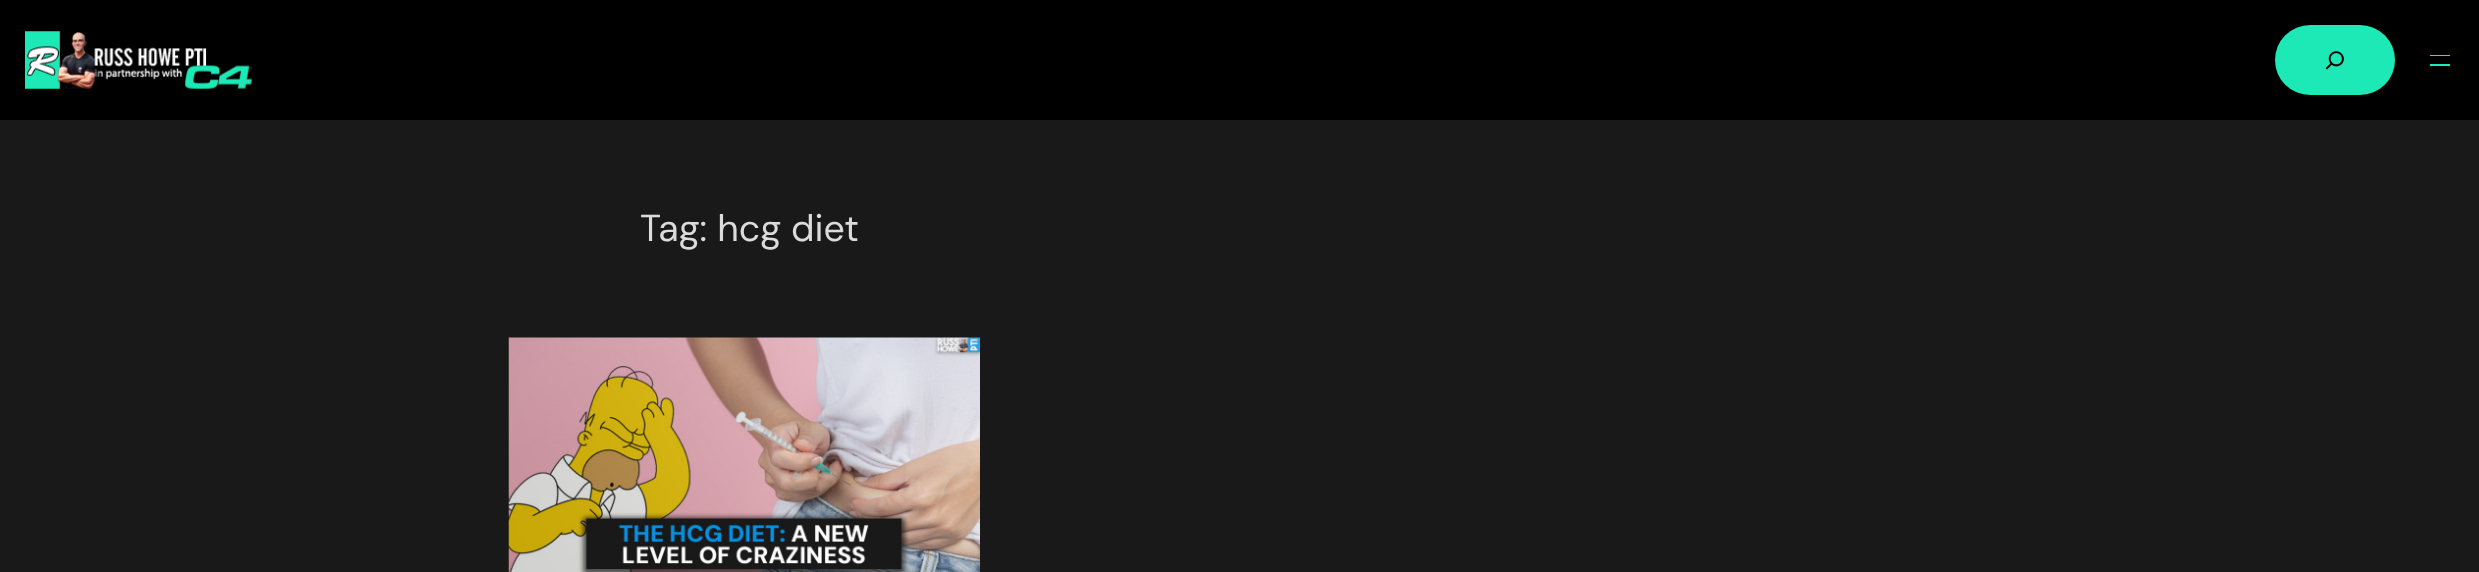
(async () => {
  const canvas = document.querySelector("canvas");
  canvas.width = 2479;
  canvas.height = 572;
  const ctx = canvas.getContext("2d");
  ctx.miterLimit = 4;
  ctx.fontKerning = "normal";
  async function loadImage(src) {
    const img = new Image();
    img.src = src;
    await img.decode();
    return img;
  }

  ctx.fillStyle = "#191919";
  ctx.fillRect(0, 0, 2479, 572);
  ctx.fillStyle = "#000000";
  ctx.fillRect(0, 0, 2479, 120);
  ctx.drawImage(await loadImage("img/1.png"), 25, 31, 227, 58);
  ctx.fillStyle = "#1de9b6";
  ctx.beginPath();
  ctx.roundRect(2275, 25, 120, 70, 35);
  ctx.fill();
  ctx.drawImage(await loadImage("img/2.png"), 2325, 51, 19, 19);
  ctx.fillRect(2430, 55, 20, 1);
  ctx.fillRect(2430, 64, 20, 2);
  ctx.drawImage(await loadImage("img/3.png"), 508, 337, 472, 235);
  ctx.font = "37.5px DM Sans";
  ctx.fillStyle = "#dbdbdb";
  ctx.fillText("Tag: hcg diet", 640, 241);
})();
